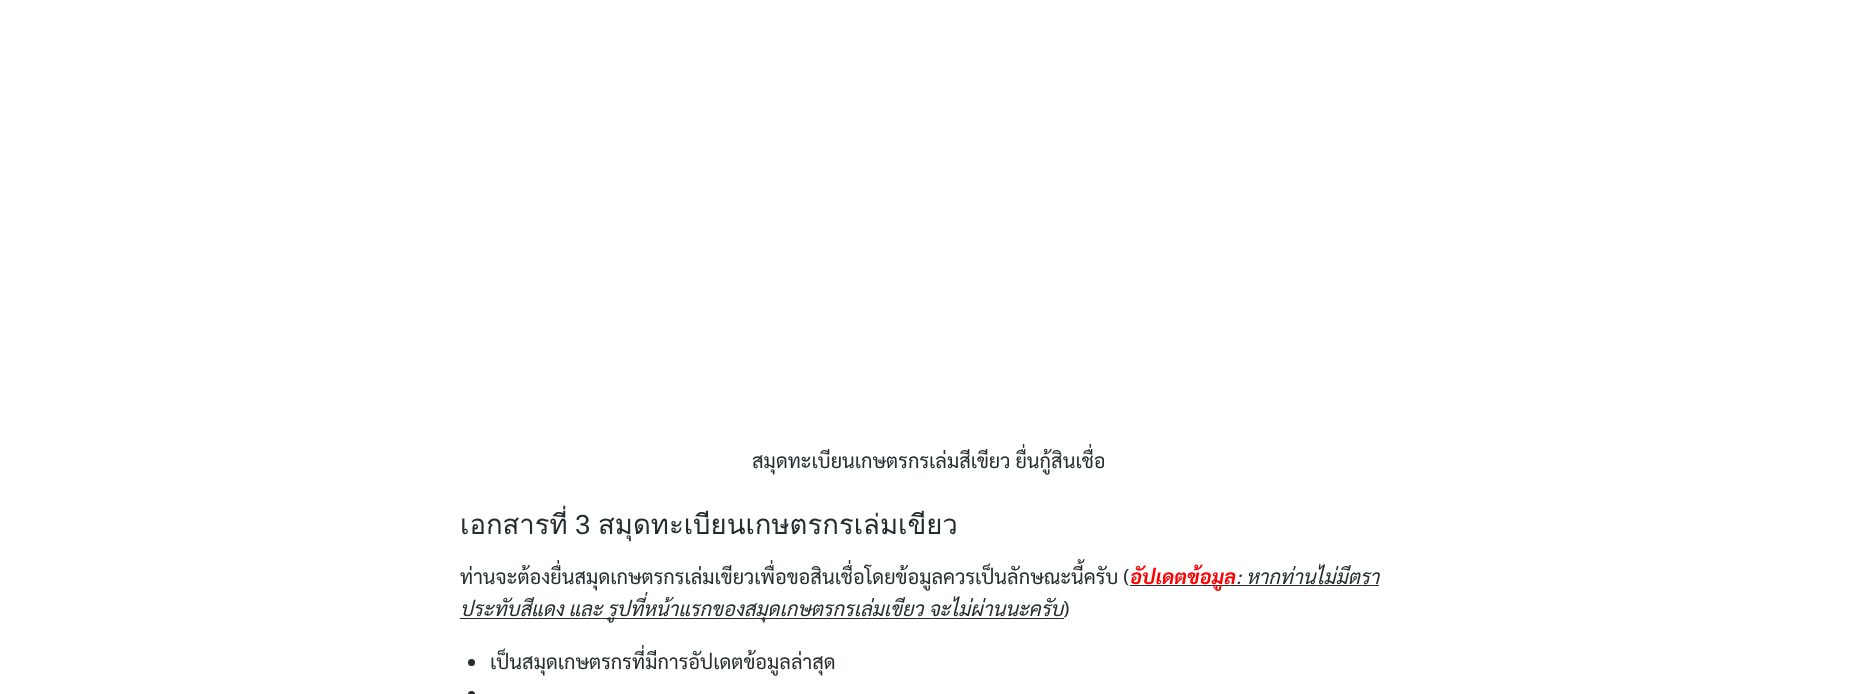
(async () => {
  const canvas = document.querySelector("canvas");
  canvas.width = 1857;
  canvas.height = 694;
  const ctx = canvas.getContext("2d");
  ctx.miterLimit = 4;
  ctx.fontKerning = "normal";

  ctx.fillStyle = "#ffffff";
  ctx.fillRect(0, 0, 1857, 694);
  ctx.fillStyle = "#242d2e";
  ctx.fillRect(1130, 585, 249, 1);
  ctx.fillRect(460, 618, 604, 1);
  ctx.beginPath();
  ctx.arc(471.5, 662.5, 3.5, 0, Math.PI * 2);
  ctx.fill();
  ctx.beginPath();
  ctx.arc(471.5, 694.5, 3.5, 0, Math.PI * 2);
  ctx.fill();
  ctx.font = "20px Sarabun";
  ctx.fillText("สมุดทะเบียนเกษตรกรเล่มสีเขียว ยื่นกู้สินเชื่อ", 752, 468);
  ctx.font = "27.5px Loma";
  ctx.fillText("เอกสารที่", 460, 534);
  ctx.font = "27.5px Liberation Sans";
  ctx.fillText("3", 575, 534);
  ctx.font = "27.5px Loma";
  ctx.fillText("สมุดทะเบียนเกษตรกรเล่มเขียว", 598, 534);
  ctx.font = "20px Sarabun";
  ctx.fillText("ท่านจะต้องยื่นสมุดเกษตรกรเล่มเขียวเพื่อขอสินเชื่อโดยข้อมูลควรเป็นลักษณะนี้ครับ (", 460, 584);
  ctx.font = "italic bold 20px Sarabun";
  ctx.fillStyle = "#ff0000";
  ctx.fillText("อัปเดตข้อมูล", 1130, 584);
  ctx.font = "italic 20px Sarabun";
  ctx.fillStyle = "#242d2e";
  ctx.fillText(": หากท่านไม่มีตรา", 1236, 584);
  ctx.fillText("ประทับสีแดง และ รูปที่หน้าแรกของสมุดเกษตรกรเล่มเขียว จะไม่ผ่านนะครับ", 460, 616);
  ctx.font = "20px Sarabun";
  ctx.fillText(")", 1063, 616);
  ctx.fillText("เป็นสมุดเกษตรกรที่มีการอัปเดตข้อมูลล่าสุด", 490, 669);
})();
